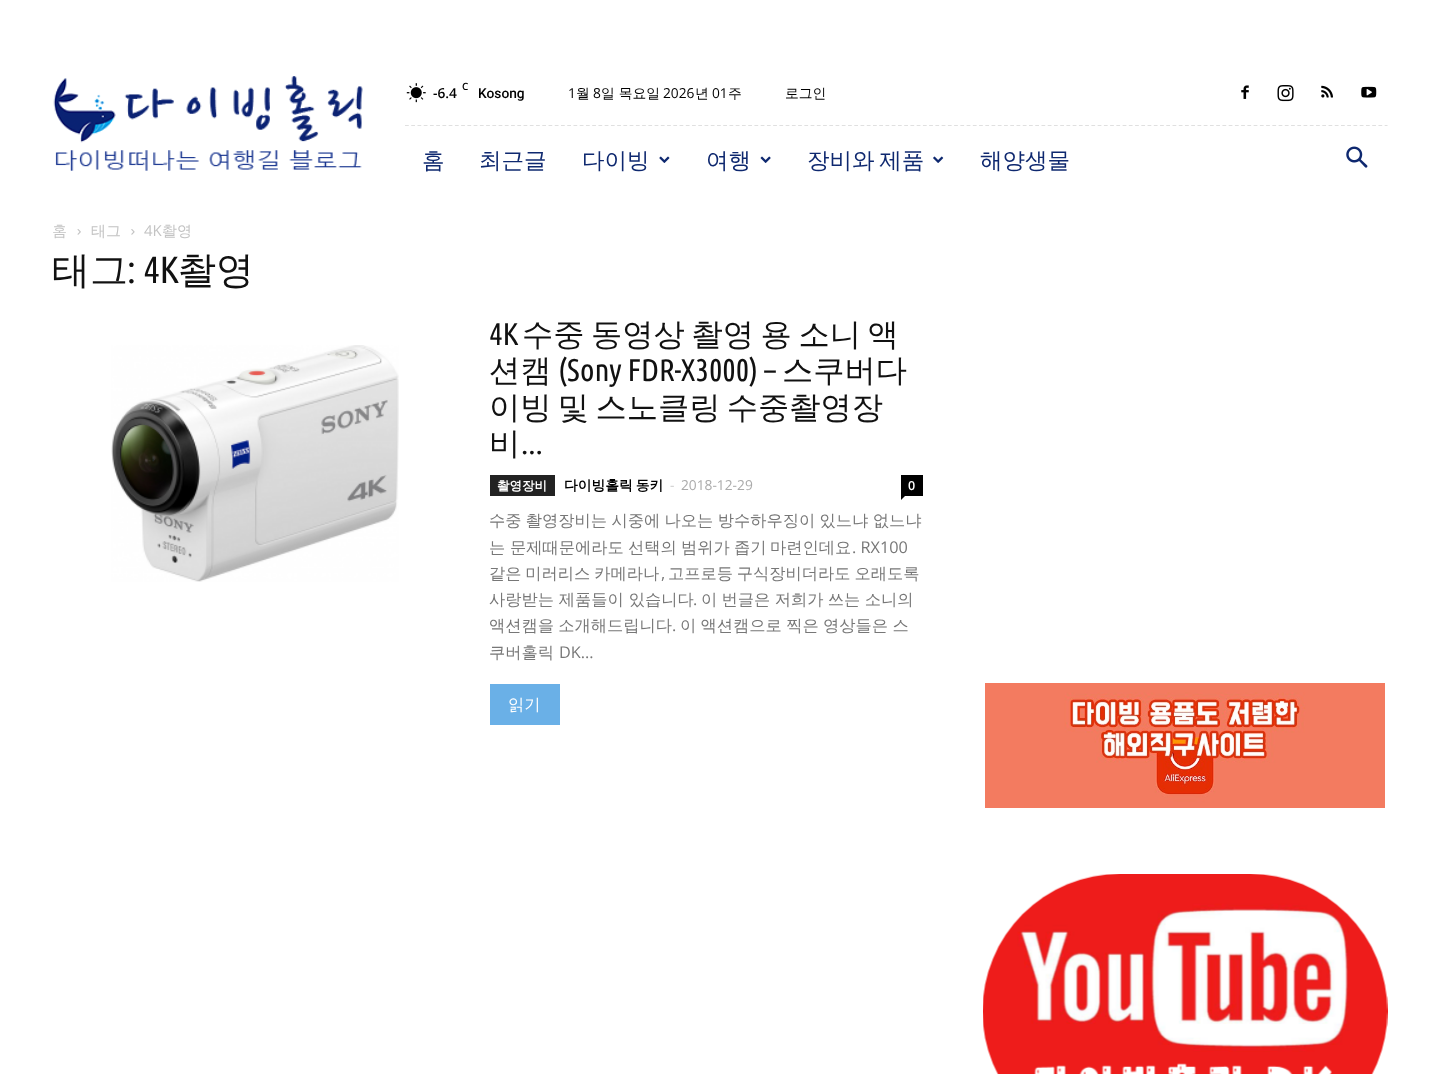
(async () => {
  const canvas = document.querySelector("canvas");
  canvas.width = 1438;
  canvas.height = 1074;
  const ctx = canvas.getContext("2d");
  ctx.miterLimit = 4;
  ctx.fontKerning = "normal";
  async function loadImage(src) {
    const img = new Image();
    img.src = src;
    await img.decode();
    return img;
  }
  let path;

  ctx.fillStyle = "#ffffff";
  ctx.fillRect(0, 0, 1438, 1074);
  ctx.drawImage(await loadImage("img/1.png"), 53, 76, 310, 95);
  path = new Path2D("M405 125.5H1387.5");
  ctx.strokeStyle = "#e0e0e0";
  ctx.lineWidth = 1.2;
  ctx.setLineDash([3.75, 2.49]);
  ctx.stroke(path);
  ctx.drawImage(await loadImage("img/2.png"), 406, 83, 20, 20);
  ctx.drawImage(await loadImage("img/3.png"), 1241, 85, 8, 14);
  ctx.drawImage(await loadImage("img/4.png"), 1277, 85, 17, 17);
  ctx.drawImage(await loadImage("img/5.png"), 1321, 85, 12, 13);
  ctx.drawImage(await loadImage("img/6.png"), 1361, 86, 16, 12);
  ctx.drawImage(await loadImage("img/7.png"), 659, 156, 11, 7);
  ctx.drawImage(await loadImage("img/8.png"), 760, 156, 11, 7);
  ctx.drawImage(await loadImage("img/9.png"), 933, 156, 11, 7);
  ctx.drawImage(await loadImage("img/10.png"), 1346, 146, 22, 22);
  ctx.drawImage(await loadImage("img/11.png"), 77, 229, 4, 6);
  ctx.drawImage(await loadImage("img/12.png"), 131, 229, 4, 6);
  ctx.drawImage(await loadImage("img/13.png"), 111, 345, 288, 237);
  ctx.fillStyle = "#222222";
  ctx.fillRect(490, 475, 65, 21);
  ctx.fillStyle = "#000000";
  ctx.fillRect(901, 475, 22, 21);
  path = new Path2D("M901 496H905L901 500Z");
  ctx.fill(path);
  ctx.fillStyle = "#6ab0e7";
  ctx.fillRect(490, 684, 70, 41);
  ctx.drawImage(await loadImage("img/14.png"), 985, 683, 400, 125);
  ctx.drawImage(await loadImage("img/15.png"), 983, 874, 405, 200);
  ctx.font = "600 10px Open Sans";
  ctx.fillStyle = "#000000";
  ctx.fillText("C", 462, 90);
  ctx.font = "600 13.75px Open Sans";
  ctx.fillText("-6.4", 433, 98);
  ctx.font = "500 13.75px Roboto";
  ctx.fillText("Kosong", 478, 98);
  ctx.font = "13.75px Open Sans";
  ctx.fillText("1", 568, 98);
  ctx.font = "500 13.75px WenQuanYi Zen Hei";
  ctx.fillText("월", 576, 98);
  ctx.font = "13.75px Open Sans";
  ctx.fillText("8", 593, 98);
  ctx.font = "500 13.75px WenQuanYi Zen Hei";
  ctx.fillText("일 목요일", 601, 98);
  ctx.font = "13.75px Open Sans";
  ctx.fillText("2026", 663, 98);
  ctx.font = "500 13.75px WenQuanYi Zen Hei";
  ctx.fillText("년", 695, 98);
  ctx.font = "13.75px Open Sans";
  ctx.fillText("01", 712, 98);
  ctx.font = "500 13.75px WenQuanYi Zen Hei";
  ctx.fillText("주", 728, 98);
  ctx.fillText("로그인", 785, 98);
  ctx.font = "500 22.5px WenQuanYi Zen Hei";
  ctx.fillStyle = "#0e286f";
  for (const [text, x, y] of [
    ["홈", 422, 168],
    ["최근글", 479, 168],
    ["다이빙", 582, 168],
    ["여행", 706, 168],
  ]) {
    ctx.fillText(text, x, y);
  }
  ctx.wordSpacing = "-2px";
  ctx.fillText("장비와 제품", 807, 168);
  ctx.wordSpacing = "0px";
  ctx.fillText("해양생물", 980, 168);
  ctx.font = "500 15px WenQuanYi Zen Hei";
  ctx.fillStyle = "#c3c3c3";
  ctx.fillText("홈", 52, 236);
  ctx.fillText("태그", 91, 236);
  ctx.font = "15px Open Sans";
  ctx.fillText("4K", 144, 236);
  ctx.font = "500 15px WenQuanYi Zen Hei";
  ctx.fillText("촬영", 162, 236);
  ctx.font = "500 38px WenQuanYi Zen Hei";
  ctx.fillStyle = "#111111";
  ctx.fillText("태그", 52, 283);
  ctx.font = "38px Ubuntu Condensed";
  ctx.fillText(": 4K", 127, 283);
  ctx.font = "500 38px WenQuanYi Zen Hei";
  ctx.fillText("촬영", 178, 283);
  ctx.font = "31.25px Ubuntu Condensed";
  ctx.fillText("4K", 489, 345);
  ctx.wordSpacing = "-2.75px";
  ctx.font = "500 31.25px WenQuanYi Zen Hei";
  ctx.fillText("수중 동영상 촬영 용 소니 액", 522, 345);
  ctx.wordSpacing = "0px";
  ctx.fillText("션캠", 489, 381);
  ctx.font = "31.25px Ubuntu Condensed";
  ctx.fillText("(Sony FDR-X3000) –", 558, 381);
  ctx.font = "500 31.25px WenQuanYi Zen Hei";
  ctx.fillText("스쿠버다", 782, 381);
  ctx.wordSpacing = "-3px";
  ctx.fillText("이빙 및 스노클링 수중촬영장", 489, 418);
  ctx.wordSpacing = "0px";
  ctx.fillText("비", 489, 454);
  ctx.font = "31.25px Ubuntu Condensed";
  ctx.fillText("...", 521, 454);
  ctx.font = "bold 12.5px WenQuanYi Zen Hei";
  ctx.fillStyle = "#ffffff";
  ctx.fillText("촬영장비", 497, 490);
  ctx.wordSpacing = "-1px";
  ctx.font = "bold 13.75px WenQuanYi Zen Hei";
  ctx.fillStyle = "#000000";
  ctx.fillText("다이빙홀릭 동키", 564, 490);
  ctx.wordSpacing = "0px";
  ctx.font = "13.75px Open Sans";
  ctx.fillStyle = "#cccccc";
  ctx.fillText("-", 670, 490);
  ctx.fillStyle = "#aaaaaa";
  ctx.fillText("2018-12-29", 681, 490);
  ctx.font = "600 12.5px Open Sans";
  ctx.fillStyle = "#ffffff";
  ctx.fillText("0", 908, 490);
  ctx.wordSpacing = "-0.5px";
  ctx.font = "500 16.25px WenQuanYi Zen Hei";
  ctx.fillStyle = "#777777";
  ctx.fillText("수중 촬영장비는 시중에 나오는 방수하우징이 있느냐 없느냐", 489, 526);
  ctx.wordSpacing = "0px";
  for (const [text, x, y] of [
    ["는", 489, 553],
    ["문제때문에라도", 510, 553],
    ["선택의", 628, 553],
    ["범위가", 681, 553],
    ["좁기", 734, 553],
    ["마련인데요", 770, 553],
  ]) {
    ctx.fillText(text, x, y);
  }
  ctx.font = "16.25px Open Sans";
  ctx.fillText(". RX100", 852, 553);
  ctx.wordSpacing = "-1px";
  ctx.font = "500 16.25px WenQuanYi Zen Hei";
  ctx.fillText("같은 미러리스 카메라나", 489, 579);
  ctx.wordSpacing = "0px";
  ctx.font = "16.25px Open Sans";
  ctx.fillText(",", 661, 579);
  ctx.wordSpacing = "-1px";
  ctx.font = "500 16.25px WenQuanYi Zen Hei";
  ctx.fillText("고프로등 구식장비더라도 오래도록", 668, 579);
  ctx.wordSpacing = "0px";
  ctx.fillText("사랑받는 제품들이 있습니다", 489, 605);
  ctx.font = "16.25px Open Sans";
  ctx.fillText(".", 693, 605);
  ctx.wordSpacing = "-0.5px";
  ctx.font = "500 16.25px WenQuanYi Zen Hei";
  ctx.fillText("이 번글은 저희가 쓰는 소니의", 701, 605);
  ctx.fillText("액션캠을 소개해드립니다", 489, 631);
  ctx.wordSpacing = "0px";
  ctx.font = "16.25px Open Sans";
  ctx.fillText(".", 672, 631);
  ctx.wordSpacing = "-0.5px";
  ctx.font = "500 16.25px WenQuanYi Zen Hei";
  ctx.fillText("이 액션캠으로 찍은 영상들은 스", 680, 631);
  ctx.wordSpacing = "0px";
  ctx.fillText("쿠버홀릭", 489, 658);
  ctx.font = "16.25px Open Sans";
  ctx.fillText("DK...", 559, 658);
  ctx.font = "500 16.25px WenQuanYi Zen Hei";
  ctx.fillStyle = "#ffffff";
  ctx.fillText("읽기", 508, 710);
})();
